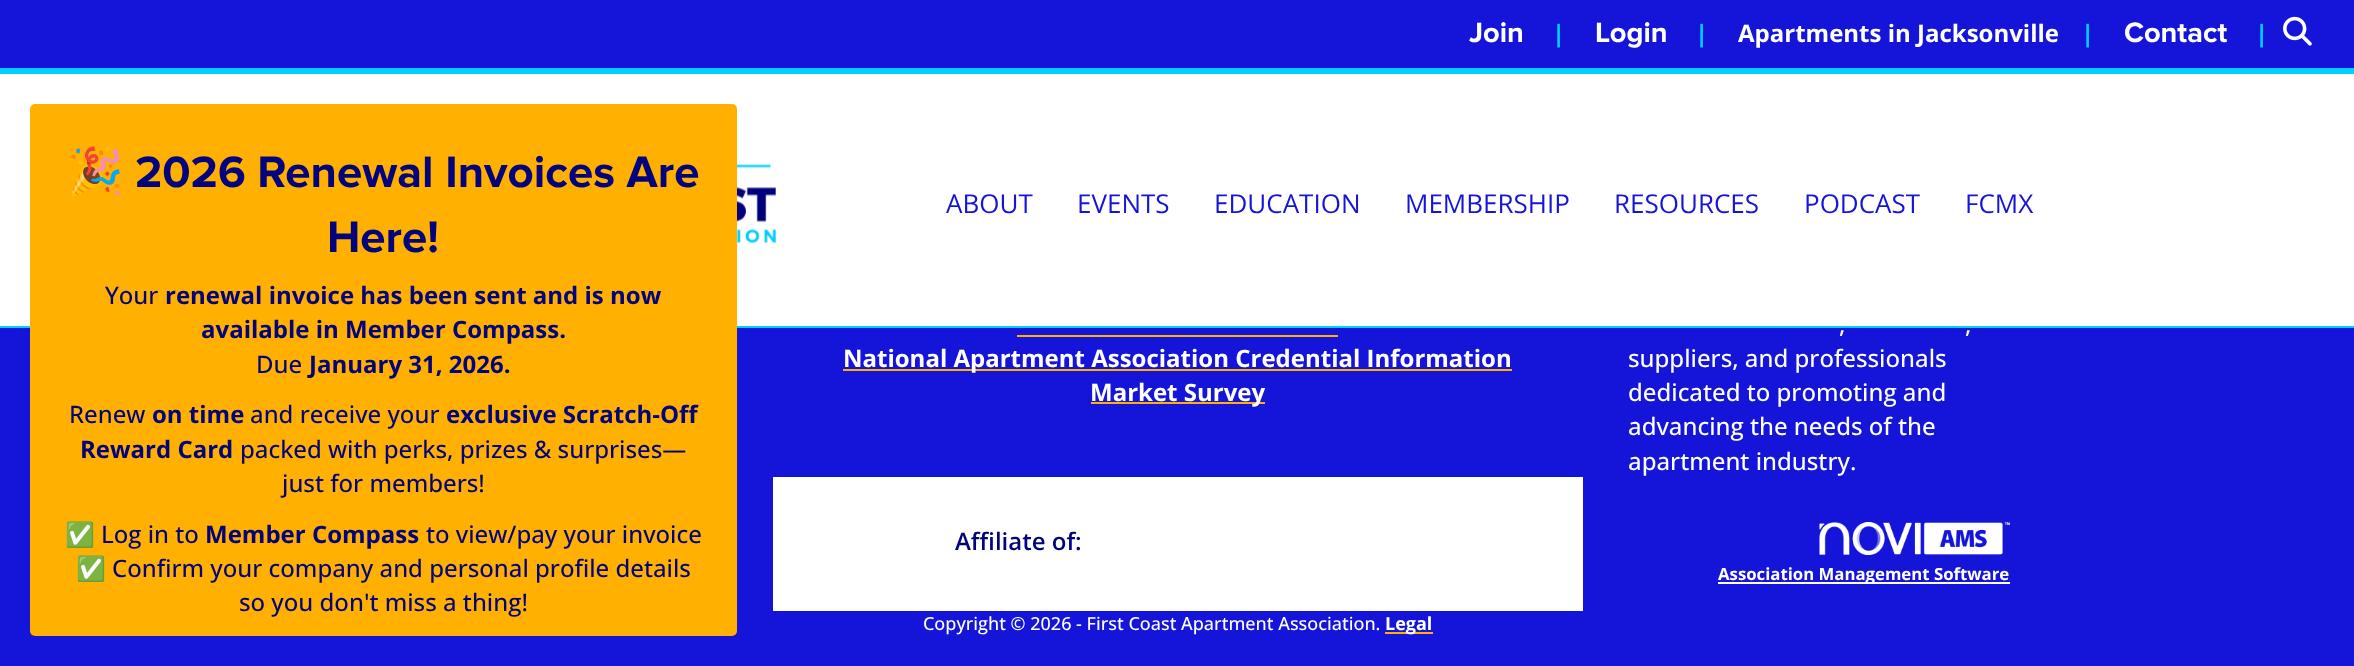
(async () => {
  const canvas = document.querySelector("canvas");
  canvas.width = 2354;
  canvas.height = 666;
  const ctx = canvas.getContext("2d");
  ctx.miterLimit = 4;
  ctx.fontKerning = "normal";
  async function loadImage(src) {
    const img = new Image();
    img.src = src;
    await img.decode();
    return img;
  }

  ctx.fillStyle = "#1515d9";
  ctx.fillRect(0, 0, 2354, 666);
  ctx.fillStyle = "#01cfff";
  ctx.fillRect(0, 68, 2354, 6);
  ctx.drawImage(await loadImage("img/1.png"), 2283, 16, 29, 30);
  ctx.fillStyle = "#ffffff";
  ctx.fillRect(0, 74, 2354, 252);
  ctx.fillStyle = "#01cfff";
  ctx.fillRect(0, 326, 2354, 2);
  ctx.drawImage(await loadImage("img/2.png"), 737, 138, 39, 116);
  ctx.fillStyle = "#ffb000";
  ctx.beginPath();
  ctx.roundRect(30, 104, 707, 532, 5);
  ctx.fill();
  for (const [x, y, w, h, color] of [
    [1017, 335, 321, 2, "#ffb000"],
    [843, 369, 669, 2, "#ffb000"],
    [1091, 402, 174, 2, "#ffb000"],
    [773, 477, 810, 134, "#ffffff"],
  ]) {
    ctx.fillStyle = color;
    ctx.fillRect(x, y, w, h);
  }
  ctx.drawImage(await loadImage("img/3.png"), 1819, 522, 191, 33);
  ctx.fillRect(1718, 582, 292, 2);
  ctx.fillStyle = "#ffb000";
  ctx.fillRect(1385, 632, 48, 2);
  ctx.font = "bold 29px Proxima Nova";
  ctx.fillStyle = "#ffffff";
  ctx.fillText("Join", 1469, 42);
  ctx.font = "bold 24px Open Sans";
  ctx.fillStyle = "#01cfff";
  ctx.fillText("|", 1552, 42);
  ctx.font = "bold 29px Proxima Nova";
  ctx.fillStyle = "#ffffff";
  ctx.fillText("Login", 1595, 42);
  ctx.font = "bold 24px Open Sans";
  ctx.fillStyle = "#01cfff";
  ctx.fillText("|", 1695, 42);
  ctx.fillStyle = "#ffffff";
  ctx.fillText("Apartments in Jacksonville", 1738, 42);
  ctx.fillStyle = "#01cfff";
  ctx.fillText("|", 2081, 42);
  ctx.font = "bold 29px Proxima Nova";
  ctx.fillStyle = "#ffffff";
  ctx.fillText("Contact", 2124, 42);
  ctx.font = "bold 24px Open Sans";
  ctx.fillStyle = "#01cfff";
  ctx.fillText("|", 2255, 42);
  ctx.font = "26px Open Sans";
  ctx.fillStyle = "#1515d9";
  for (const [text, x, y] of [
    ["ABOUT", 946, 213],
    ["EVENTS", 1077, 213],
    ["EDUCATION", 1214, 213],
    ["MEMBERSHIP", 1405, 213],
    ["RESOURCES", 1614, 213],
    ["PODCAST", 1804, 213],
    ["FCMX", 1965, 213],
  ]) {
    ctx.fillText(text, x, y);
  }
  ctx.font = "45.6px Noto Color Emoji";
  ctx.fillStyle = "#03037d";
  ctx.fillText("🎉", 67, 187);
  ctx.font = "bold 45.6px Proxima Nova";
  ctx.fillText("2026 Renewal Invoices Are", 135, 187);
  ctx.fillText("Here!", 327, 252);
  ctx.font = "500 24px Open Sans";
  ctx.fillText("Your", 105, 304);
  ctx.font = "bold 24px Open Sans";
  ctx.fillText("renewal invoice has been sent and is now", 165, 304);
  ctx.fillText("available in Member Compass.", 201, 338);
  ctx.font = "500 24px Open Sans";
  ctx.fillText("Due", 256, 373);
  ctx.font = "bold 24px Open Sans";
  ctx.fillText("January 31, 2026.", 309, 373);
  ctx.font = "500 24px Open Sans";
  ctx.fillText("Renew", 69, 423);
  ctx.font = "bold 24px Open Sans";
  ctx.fillText("on time", 152, 423);
  ctx.font = "500 24px Open Sans";
  ctx.fillText("and receive your", 250, 423);
  ctx.font = "bold 24px Open Sans";
  ctx.fillText("exclusive Scratch-Off", 446, 423);
  ctx.fillText("Reward Card", 80, 458);
  ctx.font = "500 24px Open Sans";
  ctx.fillText("packed with perks, prizes & surprises—", 240, 458);
  ctx.fillText("just for members!", 282, 492);
  ctx.font = "24px Noto Color Emoji";
  ctx.fillText("✅", 65, 543);
  ctx.font = "500 24px Open Sans";
  ctx.fillText("Log in to", 101, 543);
  ctx.font = "bold 24px Open Sans";
  ctx.fillText("Member Compass", 205, 543);
  ctx.font = "500 24px Open Sans";
  ctx.fillText("to view/pay your invoice", 426, 543);
  ctx.font = "24px Noto Color Emoji";
  ctx.fillText("✅", 76, 577);
  ctx.font = "500 24px Open Sans";
  ctx.fillText("Confirm your company and personal profile details", 112, 577);
  ctx.fillText("so you don't miss a thing!", 239, 611);
  ctx.font = "bold 24px Open Sans";
  ctx.fillStyle = "#ffffff";
  ctx.fillText("National Apartment Association Credential Information", 843, 367);
  ctx.fillText("Market Survey", 1090, 401);
  ctx.font = "600 24px Open Sans";
  ctx.fillStyle = "#03037d";
  ctx.fillText("Affiliate of:", 955, 550);
  ctx.font = "500 24px Open Sans";
  ctx.fillStyle = "#ffffff";
  for (const [text, x, y] of [
    [",", 1839, 333],
    [",", 1965, 333],
    ["suppliers, and professionals", 1628, 367],
    ["dedicated to promoting and", 1628, 401],
    ["advancing the needs of the", 1628, 435],
    ["apartment industry.", 1628, 470],
  ]) {
    ctx.fillText(text, x, y);
  }
  ctx.font = "bold 16.75px Open Sans";
  ctx.fillText("Association Management Software", 1718, 580);
  ctx.font = "500 18px Open Sans";
  ctx.fillText("Copyright © 2026 - First Coast Apartment Association.", 923, 630);
  ctx.font = "bold 18px Open Sans";
  ctx.fillText("Legal", 1385, 630);
})();
